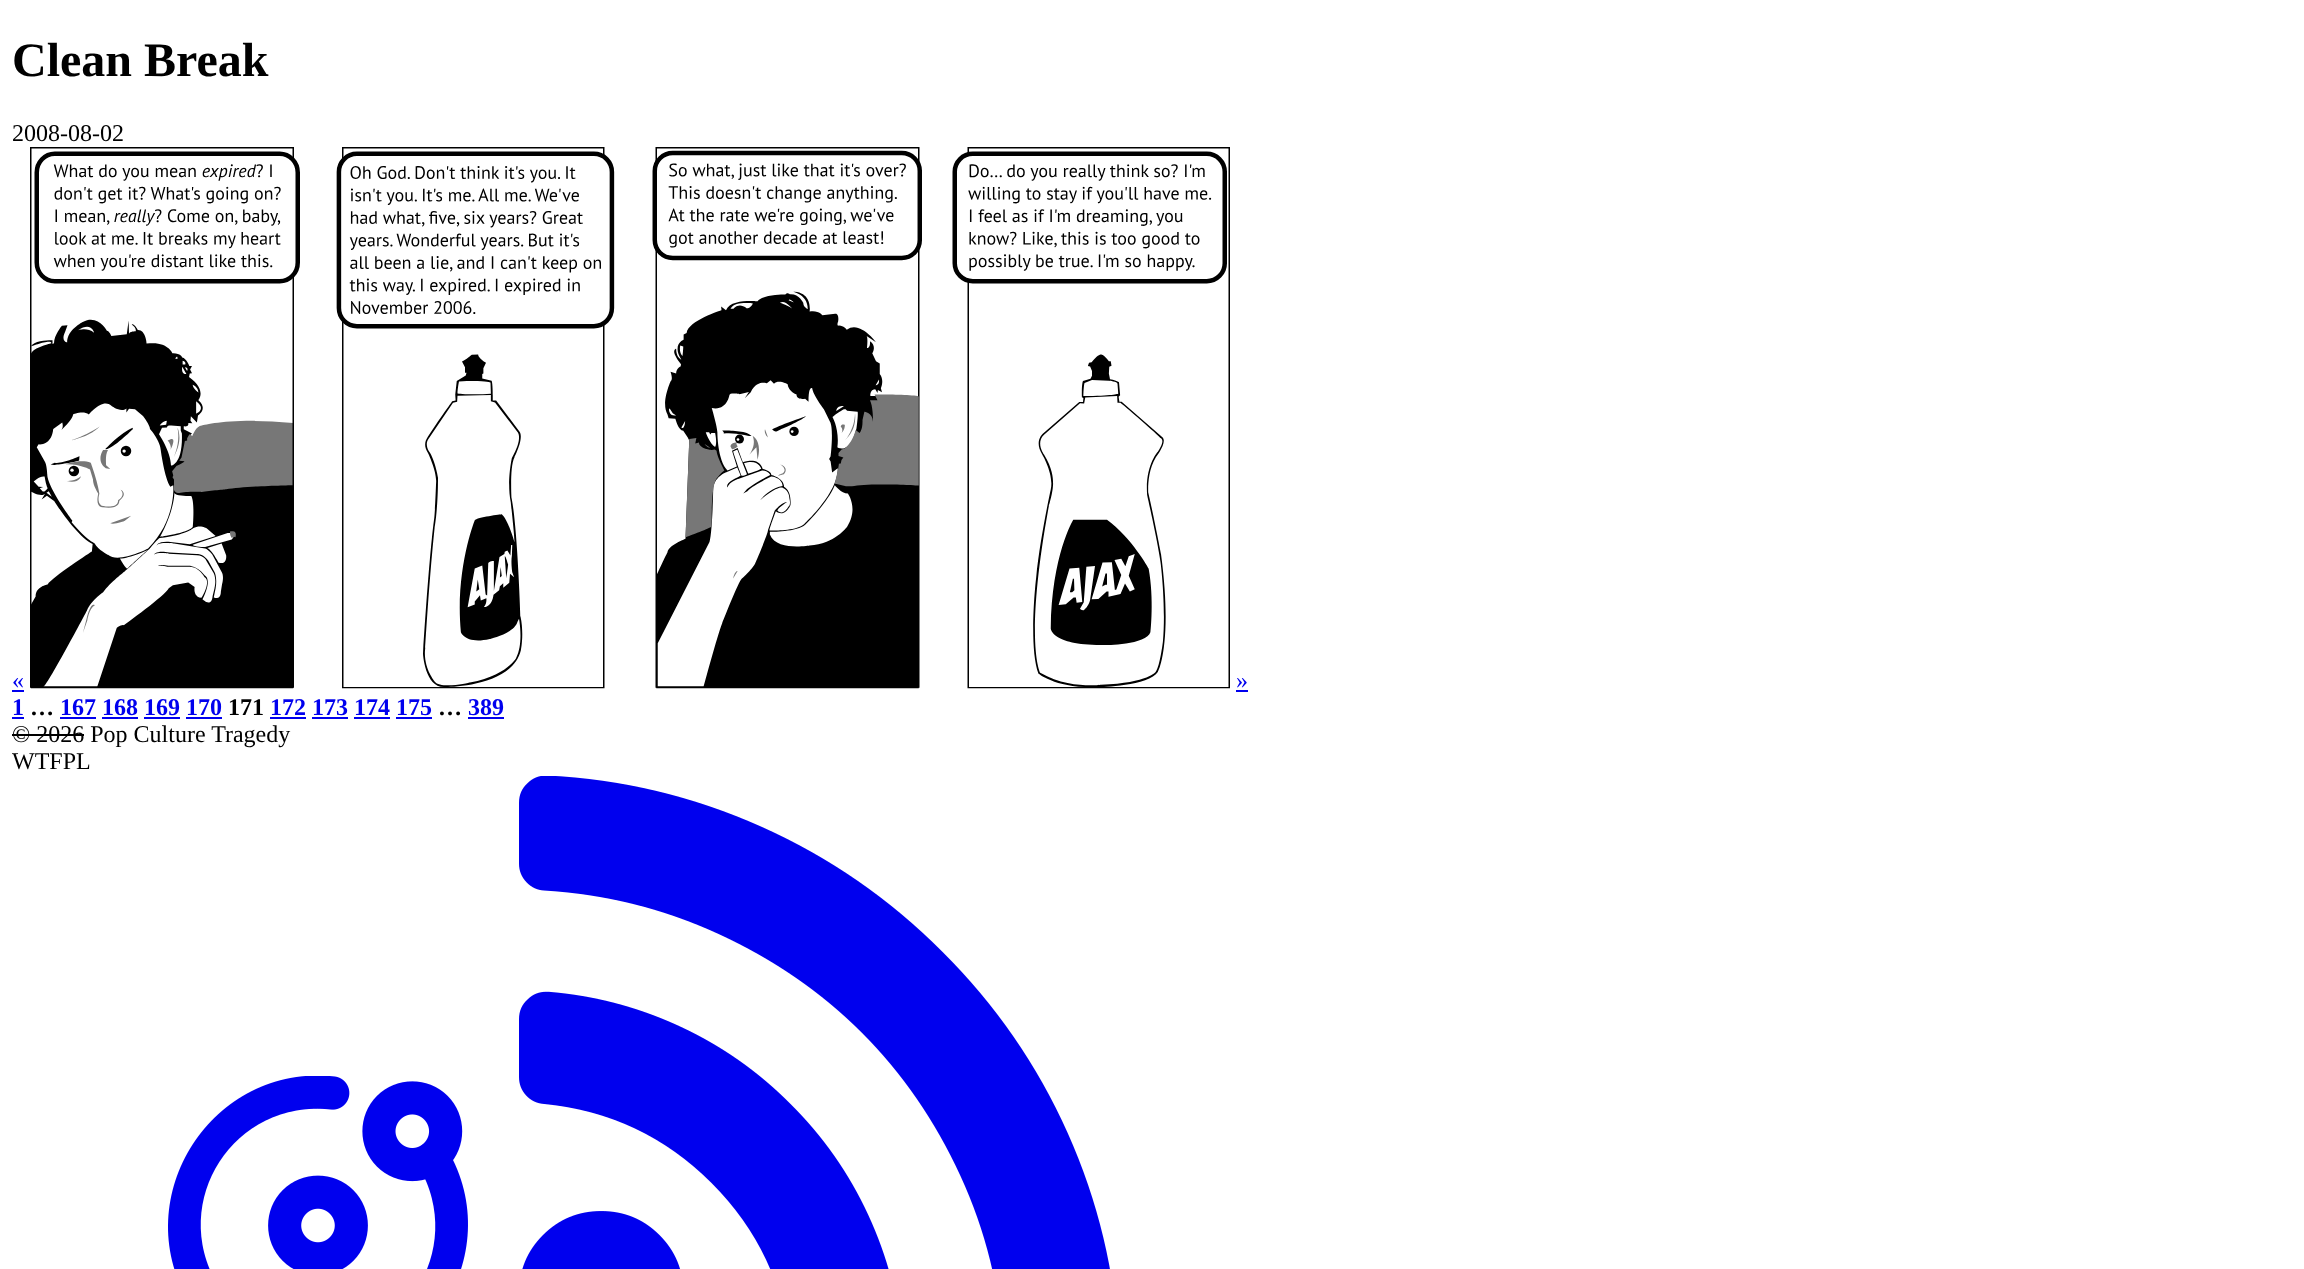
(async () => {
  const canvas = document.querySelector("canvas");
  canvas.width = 2304;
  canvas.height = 1269;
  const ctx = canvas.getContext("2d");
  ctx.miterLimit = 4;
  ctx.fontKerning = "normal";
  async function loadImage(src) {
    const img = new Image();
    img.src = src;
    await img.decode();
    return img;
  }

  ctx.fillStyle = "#ffffff";
  ctx.fillRect(0, 0, 2304, 1269);
  ctx.fillStyle = "#0000ee";
  ctx.fillRect(12, 690, 12, 2);
  ctx.drawImage(await loadImage("img/1.png"), 30, 147, 1200, 542);
  for (const [x, y, w, h, color] of [
    [1236, 690, 12, 2, "#0000ee"],
    [12, 717, 12, 2, "#0000ee"],
    [60, 717, 36, 2, "#0000ee"],
    [270, 717, 36, 2, "#0000ee"],
    [468, 717, 36, 2, "#0000ee"],
    [102, 717, 36, 2, "#0000ee"],
    [144, 717, 36, 2, "#0000ee"],
    [186, 717, 36, 2, "#0000ee"],
    [312, 717, 36, 2, "#0000ee"],
    [354, 717, 36, 2, "#0000ee"],
    [396, 717, 36, 2, "#0000ee"],
    [12, 734, 72, 2, "#000000"],
  ]) {
    ctx.fillStyle = color;
    ctx.fillRect(x, y, w, h);
  }
  ctx.drawImage(await loadImage("img/2.png"), 168, 1076, 300, 193);
  ctx.drawImage(await loadImage("img/3.png"), 519, 776, 591, 493);
  ctx.font = "bold 48px Liberation Serif";
  ctx.fillText("Clean Break", 12, 76);
  ctx.font = "24px Liberation Serif";
  ctx.fillText("2008-08-02", 12, 141);
  ctx.fillStyle = "#0000ee";
  ctx.fillText("«", 12, 688);
  ctx.fillText("»", 1236, 688);
  ctx.font = "bold 24px Liberation Serif";
  ctx.fillText("1", 12, 715);
  ctx.fillStyle = "#000000";
  ctx.fillText("…", 30, 715);
  ctx.fillStyle = "#0000ee";
  ctx.fillText("167 168 169 170", 60, 715);
  ctx.fillStyle = "#000000";
  ctx.fillText("171", 228, 715);
  ctx.fillStyle = "#0000ee";
  ctx.fillText("172 173 174 175", 270, 715);
  ctx.fillStyle = "#000000";
  ctx.fillText("…", 438, 715);
  ctx.fillStyle = "#0000ee";
  ctx.fillText("389", 468, 715);
  ctx.font = "24px Liberation Serif";
  ctx.fillStyle = "#000000";
  ctx.fillText("© 2026 Pop Culture Tragedy", 12, 742);
  ctx.fillText("WTFPL", 12, 769);
})();
